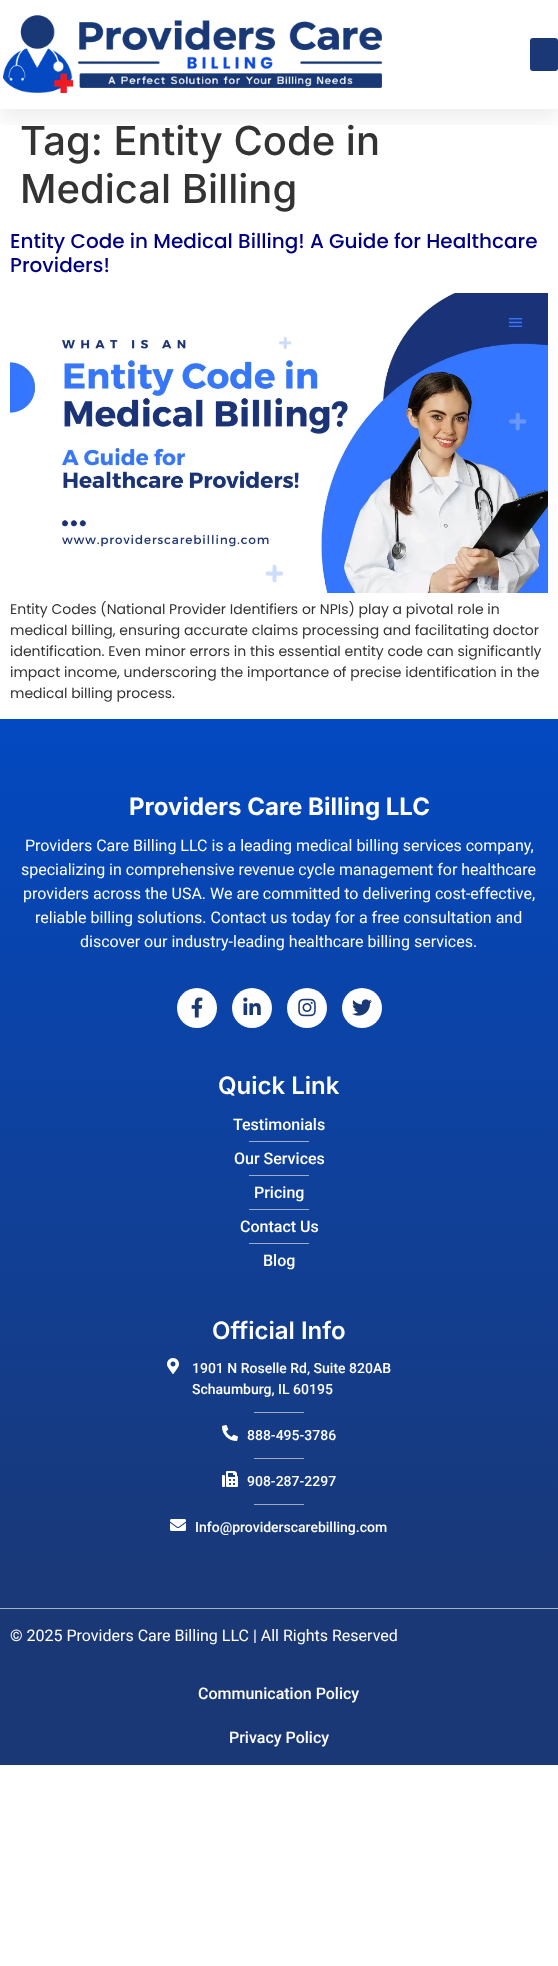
(async () => {
  const canvas = document.querySelector("canvas");
  canvas.width = 558;
  canvas.height = 1966;
  const ctx = canvas.getContext("2d");
  ctx.miterLimit = 4;
  ctx.fontKerning = "normal";
  async function loadImage(src) {
    const img = new Image();
    img.src = src;
    await img.decode();
    return img;
  }
  let gradient;

  ctx.fillStyle = "#ffffff";
  ctx.fillRect(0, 0, 558, 1966);
  ctx.save();
  ctx.beginPath();
  ctx.rect(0, 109, 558, 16);
  ctx.clip();
  ctx.fillStyle = "rgba(0, 0, 0, 0.07)";
  ctx.filter = "blur(10px)";
  ctx.beginPath();
  ctx.rect(0, 10, 558, 109);
  ctx.fill();
  ctx.filter = "none";
  ctx.restore();
  ctx.drawImage(await loadImage("img/1.png"), 3, 15, 379, 79);
  ctx.fillStyle = "#1a3876";
  ctx.beginPath();
  ctx.roundRect(530, 38, 28, 33, 3);
  ctx.fill();
  ctx.drawImage(await loadImage("img/2.png"), 10, 293, 538, 300);
  gradient = ctx.createLinearGradient(279, 719, 279, 1608);
  gradient.addColorStop(0, "#0349c1");
  gradient.addColorStop(1, "#1a3876");
  ctx.fillStyle = gradient;
  ctx.fillRect(0, 719, 558, 889);
  ctx.fillStyle = "#ffffff";
  ctx.beginPath();
  ctx.arc(197, 1008, 20, 0, Math.PI * 2);
  ctx.fill();
  ctx.drawImage(await loadImage("img/3.png"), 191, 997, 12, 21);
  ctx.beginPath();
  ctx.arc(252, 1008, 20, 0, Math.PI * 2);
  ctx.fill();
  ctx.drawImage(await loadImage("img/4.png"), 243, 997, 18, 18);
  ctx.beginPath();
  ctx.arc(307, 1008, 20, 0, Math.PI * 2);
  ctx.fill();
  ctx.drawImage(await loadImage("img/5.png"), 298, 998, 18, 19);
  ctx.beginPath();
  ctx.arc(362, 1008, 20, 0, Math.PI * 2);
  ctx.fill();
  ctx.drawImage(await loadImage("img/6.png"), 352, 999, 20, 17);
  for (const [x, y, w, h, color] of [
    [249, 1141, 60, 1, "#9dadc9"],
    [249, 1175, 60, 1, "#9dacc8"],
    [249, 1209, 60, 1, "#9dacc8"],
    [249, 1243, 60, 1, "#9eacc7"],
  ]) {
    ctx.fillStyle = color;
    ctx.fillRect(x, y, w, h);
  }
  ctx.drawImage(await loadImage("img/7.png"), 167, 1358, 12, 16);
  ctx.fillStyle = "#9fabc2";
  ctx.fillRect(254, 1412, 50, 1);
  ctx.drawImage(await loadImage("img/8.png"), 222, 1425, 16, 16);
  ctx.fillStyle = "#9fabc1";
  ctx.fillRect(254, 1458, 50, 1);
  ctx.drawImage(await loadImage("img/9.png"), 222, 1471, 16, 16);
  ctx.fillStyle = "#a0aac0";
  ctx.fillRect(254, 1504, 50, 1);
  ctx.drawImage(await loadImage("img/10.png"), 170, 1519, 16, 12);
  ctx.fillStyle = "#1a3876";
  ctx.fillRect(0, 1609, 558, 156);
  ctx.fillStyle = "#a3afc8";
  ctx.fillRect(0, 1608, 558, 1);
  ctx.font = "500 40px Inter";
  ctx.fillStyle = "#333333";
  ctx.fillText("Tag: Entity Code in", 20, 155);
  ctx.fillText("Medical Billing", 20, 203);
  ctx.font = "500 20px Poppins";
  ctx.fillStyle = "#000080";
  ctx.fillText("Entity Code in Medical Billing! A Guide for Healthcare", 10, 248);
  ctx.fillText("Providers!", 10, 272);
  ctx.font = "14px Poppins";
  ctx.fillStyle = "#333333";
  for (const [text, x, y] of [
    ["Entity Codes (National Provider Identifiers or NPIs) play a pivotal role in", 10, 614],
    ["medical billing, ensuring accurate claims processing and facilitating doctor", 10, 635],
    ["identification. Even minor errors in this essential entity code can significantly", 10, 656],
    ["impact income, underscoring the importance of precise identification in the", 10, 677],
    ["medical billing process.", 10, 698],
  ]) {
    ctx.fillText(text, x, y);
  }
  ctx.font = "bold 24px Inter";
  ctx.fillStyle = "#ffffff";
  ctx.fillText("Providers Care Billing LLC", 129, 815);
  ctx.font = "16px Roboto";
  for (const [text, x, y] of [
    ["Providers Care Billing LLC is a leading medical billing services company,", 25, 851],
    ["specializing in comprehensive revenue cycle management for healthcare", 21, 875],
    ["providers across the USA. We are committed to delivering cost-effective,", 23, 899],
    ["reliable billing solutions. Contact us today for a free consultation and", 35, 923],
    ["discover our industry-leading healthcare billing services.", 80, 947],
  ]) {
    ctx.fillText(text, x, y);
  }
  ctx.font = "600 24px Inter";
  ctx.fillText("Quick Link", 218, 1094);
  ctx.font = "500 16px Roboto";
  for (const [text, x, y] of [
    ["Testimonials", 233, 1130],
    ["Our Services", 234, 1164],
    ["Pricing", 254, 1198],
    ["Contact Us", 240, 1232],
    ["Blog", 263, 1266],
  ]) {
    ctx.fillText(text, x, y);
  }
  ctx.font = "600 24px Inter";
  ctx.fillText("Official Info", 212, 1339);
  ctx.font = "500 14px Roboto";
  for (const [text, x, y] of [
    ["1901 N Roselle Rd, Suite 820AB", 192, 1373],
    ["Schaumburg, IL 60195", 192, 1394],
    ["888-495-3786", 247, 1440],
    ["908-287-2297", 247, 1486],
    ["Info@providerscarebilling.com", 195, 1532],
  ]) {
    ctx.fillText(text, x, y);
  }
  ctx.font = "16px Roboto";
  ctx.fillText("© 2025 Providers Care Billing LLC | All Rights Reserved", 10, 1641);
  ctx.font = "500 16px Roboto";
  ctx.fillText("Communication Policy", 198, 1699);
  ctx.fillText("Privacy Policy", 229, 1743);
})();
